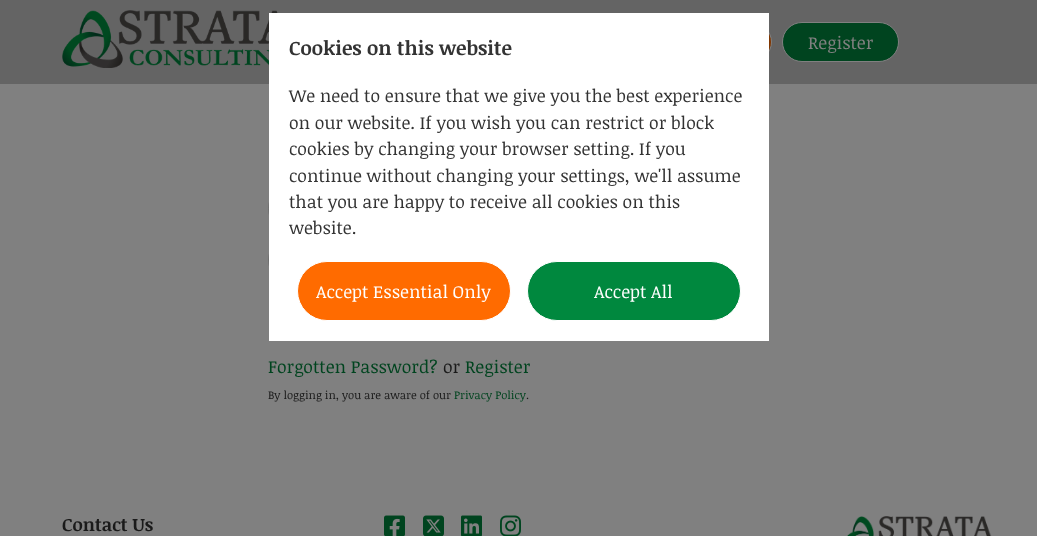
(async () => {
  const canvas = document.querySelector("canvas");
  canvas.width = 1037;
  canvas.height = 536;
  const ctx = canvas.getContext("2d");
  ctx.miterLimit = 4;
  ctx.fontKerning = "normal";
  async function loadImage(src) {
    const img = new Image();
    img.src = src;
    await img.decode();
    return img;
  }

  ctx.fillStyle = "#808080";
  ctx.fillRect(0, 0, 1037, 536);
  ctx.fillStyle = "#646464";
  ctx.fillRect(0, 0, 1037, 84);
  ctx.drawImage(await loadImage("img/1.png"), 62, 10, 216, 58);
  ctx.fillStyle = "#803600";
  ctx.beginPath();
  ctx.roundRect(695.5, 23.5, 76, 37, 18.5);
  ctx.fill();
  ctx.strokeStyle = "#808080";
  ctx.stroke();
  ctx.fillStyle = "#00441f";
  ctx.beginPath();
  ctx.roundRect(782.5, 22.5, 116, 39, 19.5);
  ctx.fill();
  ctx.stroke();
  ctx.beginPath();
  ctx.roundRect(268.5, 184.5, 474, 48, 24);
  ctx.strokeStyle = "#6f6f6f";
  ctx.stroke();
  ctx.beginPath();
  ctx.roundRect(268.5, 236.5, 474, 47, 23.5);
  ctx.stroke();
  ctx.drawImage(await loadImage("img/2.png"), 384, 515, 21, 21);
  ctx.drawImage(await loadImage("img/3.png"), 423, 515, 21, 21);
  ctx.drawImage(await loadImage("img/4.png"), 461, 515, 21, 21);
  ctx.drawImage(await loadImage("img/5.png"), 500, 515, 21, 21);
  ctx.drawImage(await loadImage("img/6.png"), 847, 516, 145, 20);
  ctx.fillStyle = "#ffffff";
  ctx.fillRect(269, 13, 500, 328);
  ctx.fillStyle = "#ff6b00";
  ctx.beginPath();
  ctx.roundRect(297.5, 261.5, 213, 59, 29.5);
  ctx.fill();
  ctx.strokeStyle = "#ffffff";
  ctx.stroke();
  ctx.fillStyle = "#00883e";
  ctx.beginPath();
  ctx.roundRect(527.5, 261.5, 213, 59, 29.5);
  ctx.fill();
  ctx.stroke();
  ctx.font = "17.6px Noticia Text";
  ctx.fillStyle = "#808080";
  ctx.fillText("Register", 808, 49);
  ctx.fillStyle = "#00441f";
  ctx.fillText("Forgotten Password?", 268, 373);
  ctx.fillStyle = "#1a1a1a";
  ctx.fillText("or", 443, 373);
  ctx.fillStyle = "#00441f";
  ctx.fillText("Register", 465, 373);
  ctx.font = "11.25px Noticia Text";
  ctx.fillStyle = "#1a1a1a";
  ctx.fillText("By logging in, you are aware of our", 268, 399);
  ctx.fillStyle = "#00441f";
  ctx.fillText("Privacy Policy", 454, 399);
  ctx.fillStyle = "#1a1a1a";
  ctx.fillText(".", 526, 399);
  ctx.font = "bold 18px Noticia Text";
  ctx.fillText("Contact Us", 62, 531);
  ctx.font = "bold 19.75px Noticia Text";
  ctx.fillStyle = "#333333";
  ctx.fillText("Cookies on this website", 289, 55);
  ctx.font = "17.6px Noticia Text";
  for (const [text, x, y] of [
    ["We need to ensure that we give you the best experience", 289, 102],
    ["on our website. If you wish you can restrict or block", 289, 129],
    ["cookies by changing your browser setting. If you", 289, 155],
    ["continue without changing your settings, we'll assume", 289, 182],
    ["that you are happy to receive all cookies on this", 289, 208],
    ["website.", 289, 234],
  ]) {
    ctx.fillText(text, x, y);
  }
  ctx.fillStyle = "#ffffff";
  ctx.fillText("Accept Essential Only", 316, 298);
  ctx.fillText("Accept All", 594, 298);
})();
